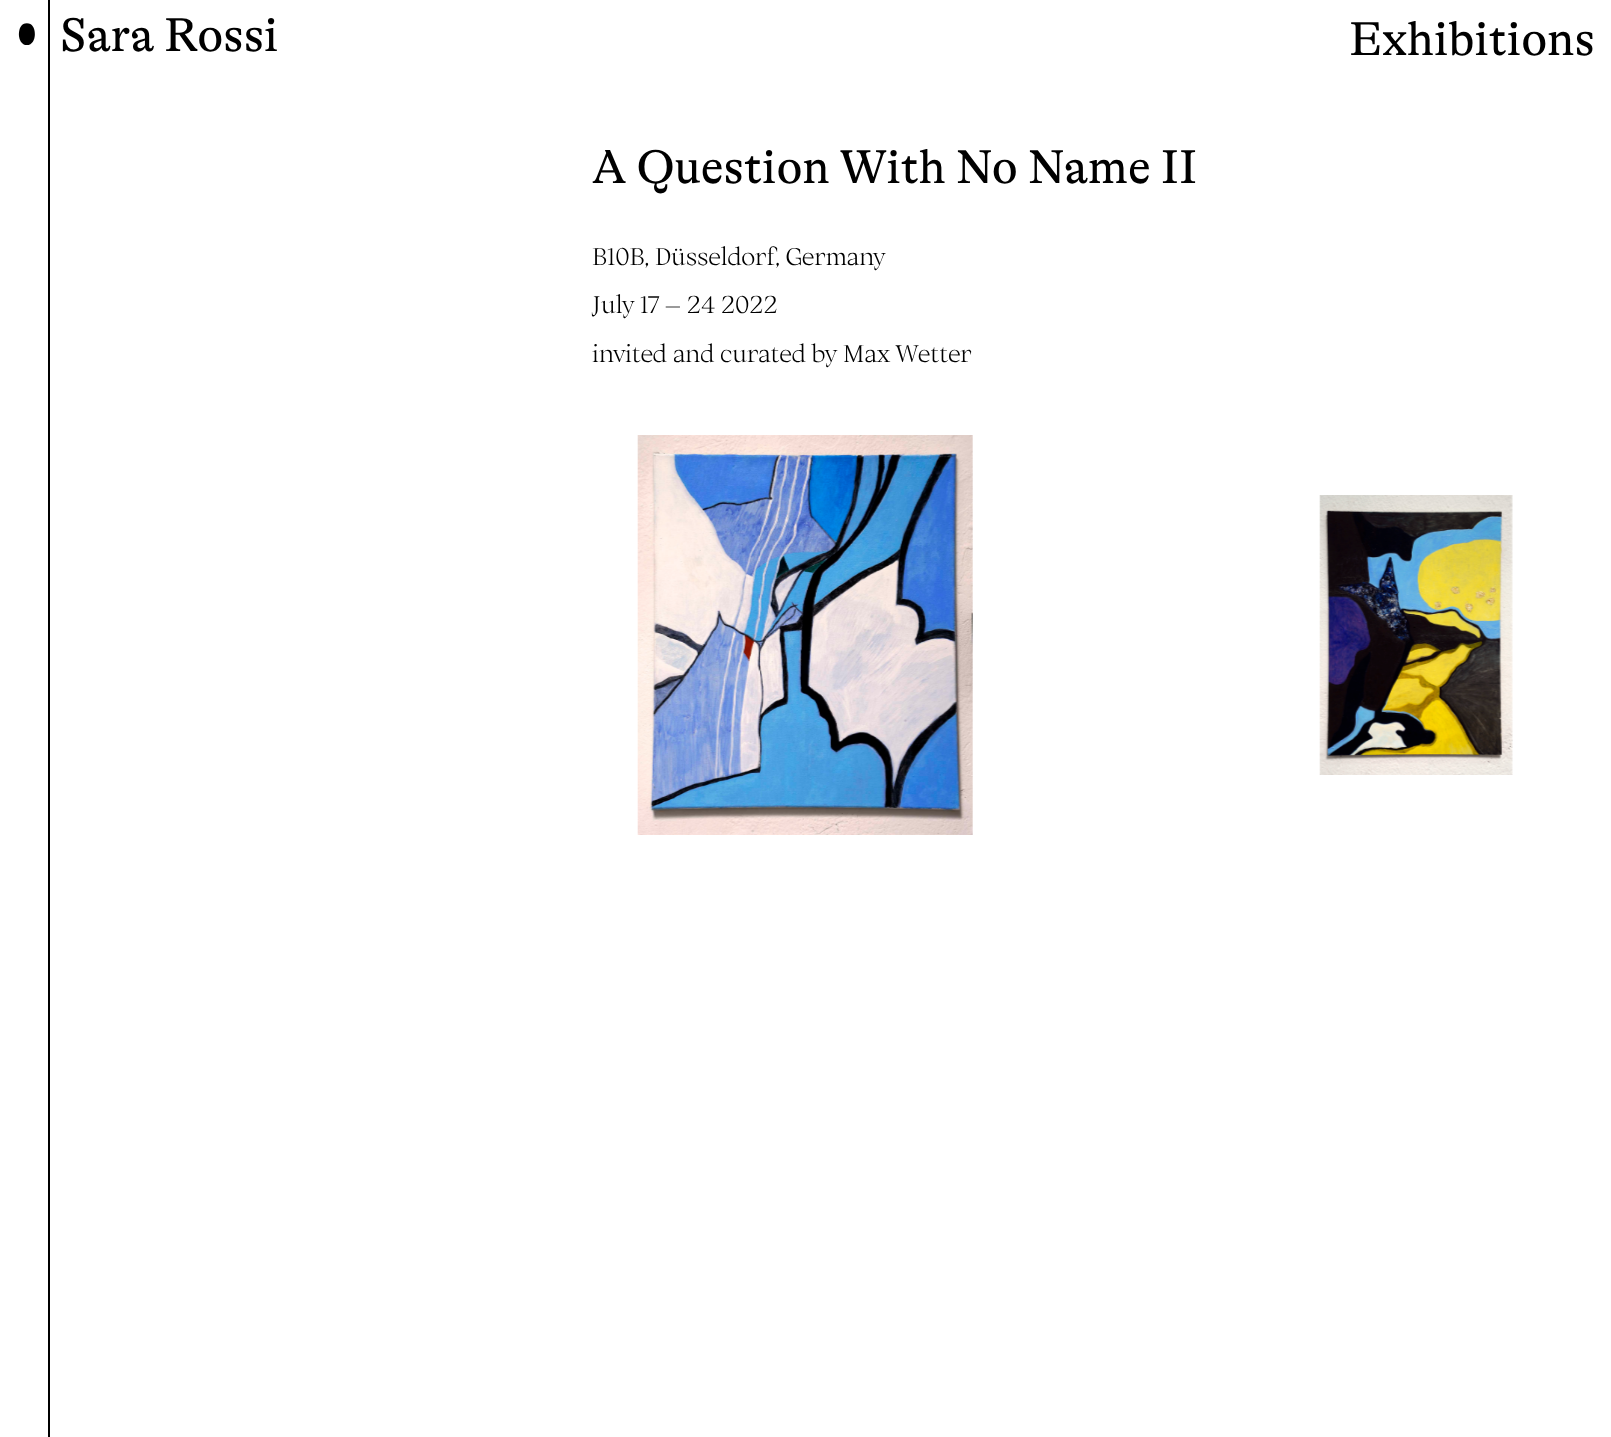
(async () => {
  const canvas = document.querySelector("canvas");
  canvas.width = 1611;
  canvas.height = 1437;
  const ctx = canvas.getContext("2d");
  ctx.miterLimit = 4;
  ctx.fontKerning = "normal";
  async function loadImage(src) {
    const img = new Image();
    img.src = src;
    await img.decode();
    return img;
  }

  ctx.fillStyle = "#ffffff";
  ctx.fillRect(0, 0, 1611, 1437);
  ctx.fillStyle = "#000000";
  ctx.fillRect(48, 0, 2, 1437);
  ctx.drawImage(await loadImage("img/1.png"), 637, 435, 336, 400);
  ctx.drawImage(await loadImage("img/2.png"), 1319, 495, 194, 280);
  ctx.font = "32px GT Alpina";
  ctx.fillText("⬮", 16, 45);
  ctx.font = "48px GT Alpina";
  for (const [text, x, y] of [
    ["Sara Rossi", 60, 51],
    ["Exhibitions", 1349, 55],
    ["A Question With No Name II", 592, 183],
  ]) {
    ctx.fillText(text, x, y);
  }
  ctx.font = "300 24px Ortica";
  for (const [text, x, y] of [
    ["B10B, Düsseldorf, Germany", 592, 265],
    ["July 17 – 24 2022", 592, 313],
    ["invited and curated by Max Wetter", 592, 362],
  ]) {
    ctx.fillText(text, x, y);
  }
})();
